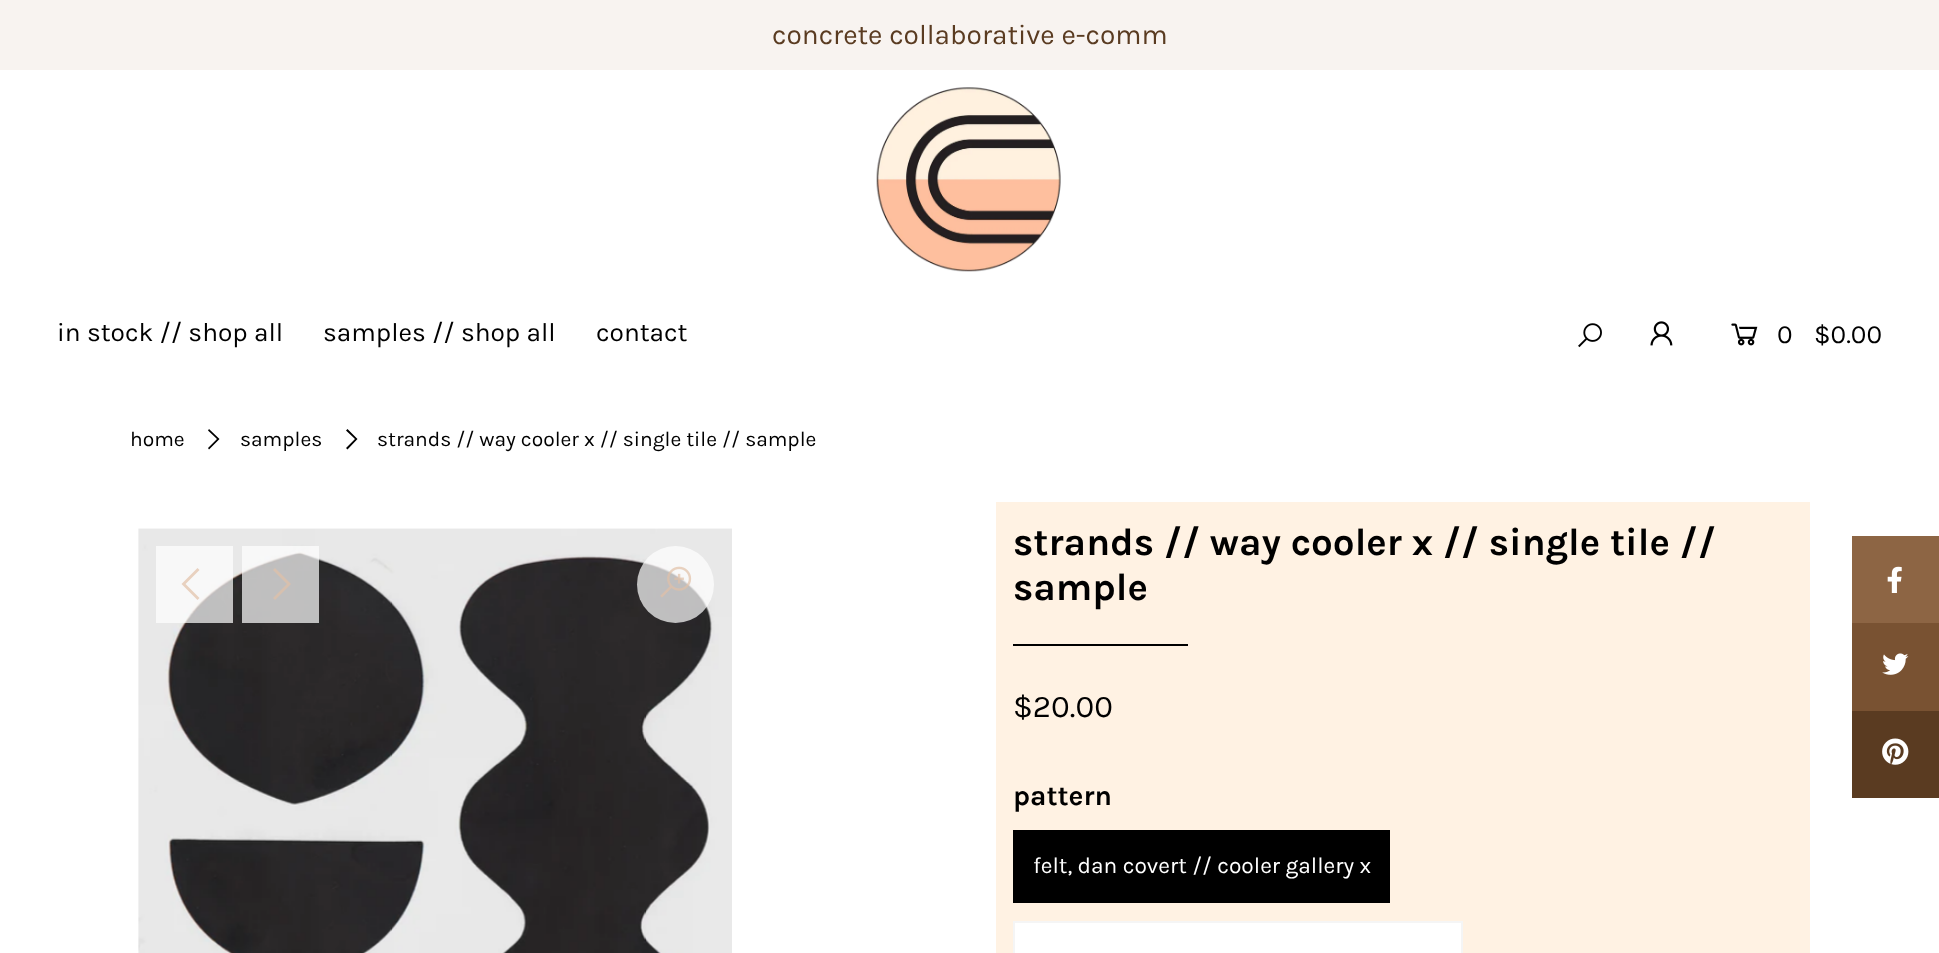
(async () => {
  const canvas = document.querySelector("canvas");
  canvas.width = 1939;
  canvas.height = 953;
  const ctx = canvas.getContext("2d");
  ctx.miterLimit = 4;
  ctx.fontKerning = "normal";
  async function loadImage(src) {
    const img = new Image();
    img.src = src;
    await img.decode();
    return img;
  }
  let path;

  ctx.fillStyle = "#ffffff";
  ctx.fillRect(0, 0, 1939, 953);
  ctx.fillStyle = "#f8f3f0";
  ctx.fillRect(0, 0, 1939, 70);
  ctx.drawImage(await loadImage("img/1.png"), 876, 87, 185, 185);
  ctx.drawImage(await loadImage("img/2.png"), 1578, 323, 24, 25);
  ctx.drawImage(await loadImage("img/3.png"), 1650, 321, 23, 25);
  ctx.drawImage(await loadImage("img/4.png"), 1731, 323, 27, 23);
  ctx.fillStyle = "#000000";
  path = new Path2D("M209 429L219.5 439L209 449.5L208 448L217 439L208 430.5Z");
  ctx.fill(path);
  path = new Path2D("M347.5 429L357.5 439L347.5 449.5L346 448L355 439L346 430.5Z");
  ctx.fill(path);
  ctx.drawImage(await loadImage("img/5.png"), 138, 528, 594, 425);
  ctx.fillStyle = "rgba(255, 255, 255, 0.7)";
  ctx.beginPath();
  ctx.arc(675.5, 584.5, 38.5, 0, Math.PI * 2);
  ctx.fill();
  ctx.drawImage(await loadImage("img/6.png"), 660, 566, 32, 32);
  ctx.fillRect(156, 546, 77, 77);
  ctx.fillStyle = "#e8d1bf";
  path = new Path2D("M197.5 568L199.5 570L185.5 584L199.5 598L197.5 600L181.5 584Z");
  ctx.fill(path);
  ctx.fillStyle = "rgba(255, 255, 255, 0.7)";
  ctx.fillRect(242, 546, 77, 77);
  ctx.fillStyle = "#d7c0ae";
  path = new Path2D("M275 568L291 584L275 600L273 598L287 584L273 570Z");
  ctx.fill(path);
  for (const [x, y, w, h, color] of [
    [996, 502, 814, 451, "#fff2e3"],
    [1013, 644, 175, 2, "#000000"],
    [1013, 830, 377, 73, "#000000"],
  ]) {
    ctx.fillStyle = color;
    ctx.fillRect(x, y, w, h);
  }
  ctx.fillStyle = "#ffffff";
  ctx.beginPath();
  ctx.rect(1014, 922, 448, 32);
  ctx.fill();
  ctx.strokeStyle = "#f5f5f5";
  ctx.lineWidth = 2;
  ctx.stroke();
  ctx.fillStyle = "#8d6544";
  ctx.fillRect(1852, 536, 87, 87);
  ctx.drawImage(await loadImage("img/7.png"), 1887, 566, 15, 27);
  ctx.fillStyle = "#795232";
  ctx.fillRect(1852, 623, 87, 88);
  ctx.drawImage(await loadImage("img/8.png"), 1882, 653, 27, 22);
  ctx.fillStyle = "#5a3b21";
  ctx.fillRect(1852, 711, 87, 87);
  ctx.drawImage(await loadImage("img/9.png"), 1882, 738, 27, 27);
  ctx.font = "28px Karla";
  ctx.fillText("concrete collaborative e-comm", 772, 44);
  ctx.font = "26.25px Karla";
  ctx.fillStyle = "#000000";
  for (const [text, x, y] of [
    ["in stock // shop all", 57, 341],
    ["samples // shop all", 323, 341],
    ["contact", 596, 341],
    ["0", 1777, 343],
    ["$0.00", 1814, 343],
  ]) {
    ctx.fillText(text, x, y);
  }
  ctx.font = "21px Karla";
  for (const [text, x, y] of [
    ["home", 130, 446],
    ["samples", 240, 446],
    ["strands // way cooler x // single tile // sample", 377, 446],
  ]) {
    ctx.fillText(text, x, y);
  }
  ctx.font = "bold 38.5px Karla";
  ctx.fillText("strands // way cooler x // single tile //", 1013, 555);
  ctx.fillText("sample", 1013, 600);
  ctx.font = "31.5px Karla";
  ctx.fillText("$20.00", 1013, 717);
  ctx.font = "bold 28px Karla";
  ctx.fillText("pattern", 1013, 805);
  ctx.font = "22.75px Karla";
  ctx.fillStyle = "#ffffff";
  ctx.fillText("felt, dan covert // cooler gallery x", 1033, 873);
})();
